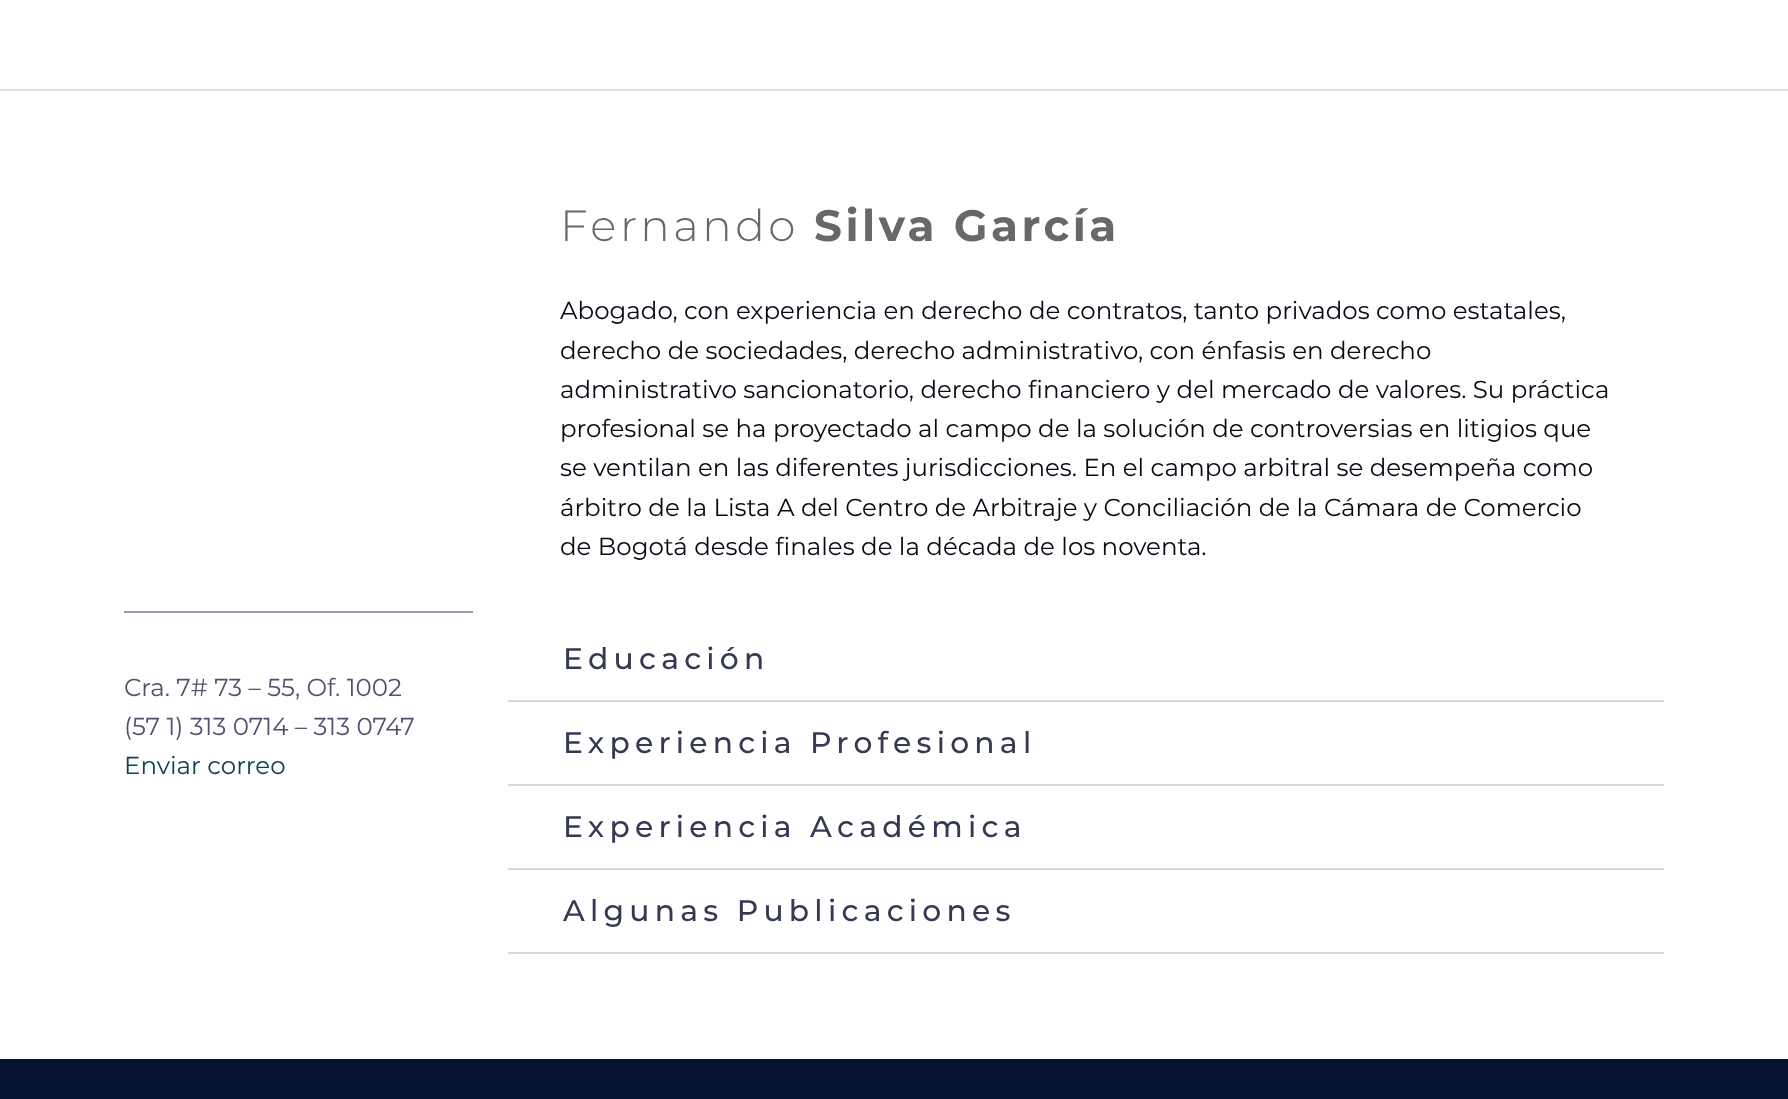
(async () => {
  const canvas = document.querySelector("canvas");
  canvas.width = 1788;
  canvas.height = 1099;
  const ctx = canvas.getContext("2d");
  ctx.miterLimit = 4;
  ctx.fontKerning = "normal";

  ctx.fillStyle = "#ffffff";
  ctx.fillRect(0, 0, 1788, 1099);
  for (const [x, y, w, h, color] of [
    [0, 89, 1788, 2, "#e2e2e2"],
    [124, 611, 349, 2, "#959db3"],
    [508, 700, 1156, 2, "#d5d8dc"],
    [508, 784, 1156, 2, "#d5d8dc"],
    [508, 868, 1156, 2, "#d5d8dc"],
    [508, 952, 1156, 2, "#d5d8dc"],
    [0, 1059, 1788, 40, "#04132f"],
  ]) {
    ctx.fillStyle = color;
    ctx.fillRect(x, y, w, h);
  }
  ctx.font = "24.5px Montserrat";
  ctx.fillStyle = "#50516d";
  ctx.fillText("Cra. 7# 73 – 55, Of. 1002", 124, 696);
  ctx.fillText("(57 1) 313 0714 – 313 0747", 124, 735);
  ctx.fillStyle = "#0e405a";
  ctx.fillText("Enviar correo", 124, 774);
  ctx.letterSpacing = "3.5px";
  ctx.font = "300 43.75px Montserrat";
  ctx.fillStyle = "#686868";
  ctx.fillText("Fernando", 560, 241);
  ctx.font = "bold 43.75px Montserrat";
  ctx.fillText("Silva García", 814, 241);
  ctx.letterSpacing = "0px";
  ctx.font = "24.5px Montserrat";
  ctx.fillStyle = "#080a13";
  for (const [text, x, y] of [
    ["Abogado, con experiencia en derecho de contratos, tanto privados como estatales,", 560, 319],
    ["derecho de sociedades, derecho administrativo, con énfasis en derecho", 560, 359],
    ["administrativo sancionatorio, derecho financiero y del mercado de valores. Su práctica", 560, 398],
    ["profesional se ha proyectado al campo de la solución de controversias en litigios que", 560, 437],
    ["se ventilan en las diferentes jurisdicciones. En el campo arbitral se desempeña como", 560, 476],
    ["árbitro de la Lista A del Centro de Arbitraje y Conciliación de la Cámara de Comercio", 560, 516],
    ["de Bogotá desde finales de la década de los noventa.", 560, 555],
  ]) {
    ctx.fillText(text, x, y);
  }
  ctx.letterSpacing = "5.25px";
  ctx.font = "500 29.75px Montserrat";
  ctx.fillStyle = "#363954";
  for (const [text, x, y] of [
    ["Educación", 563, 669],
    ["Experiencia Profesional", 563, 753],
    ["Experiencia Académica", 563, 837],
    ["Algunas Publicaciones", 563, 921],
  ]) {
    ctx.fillText(text, x, y);
  }
})();
